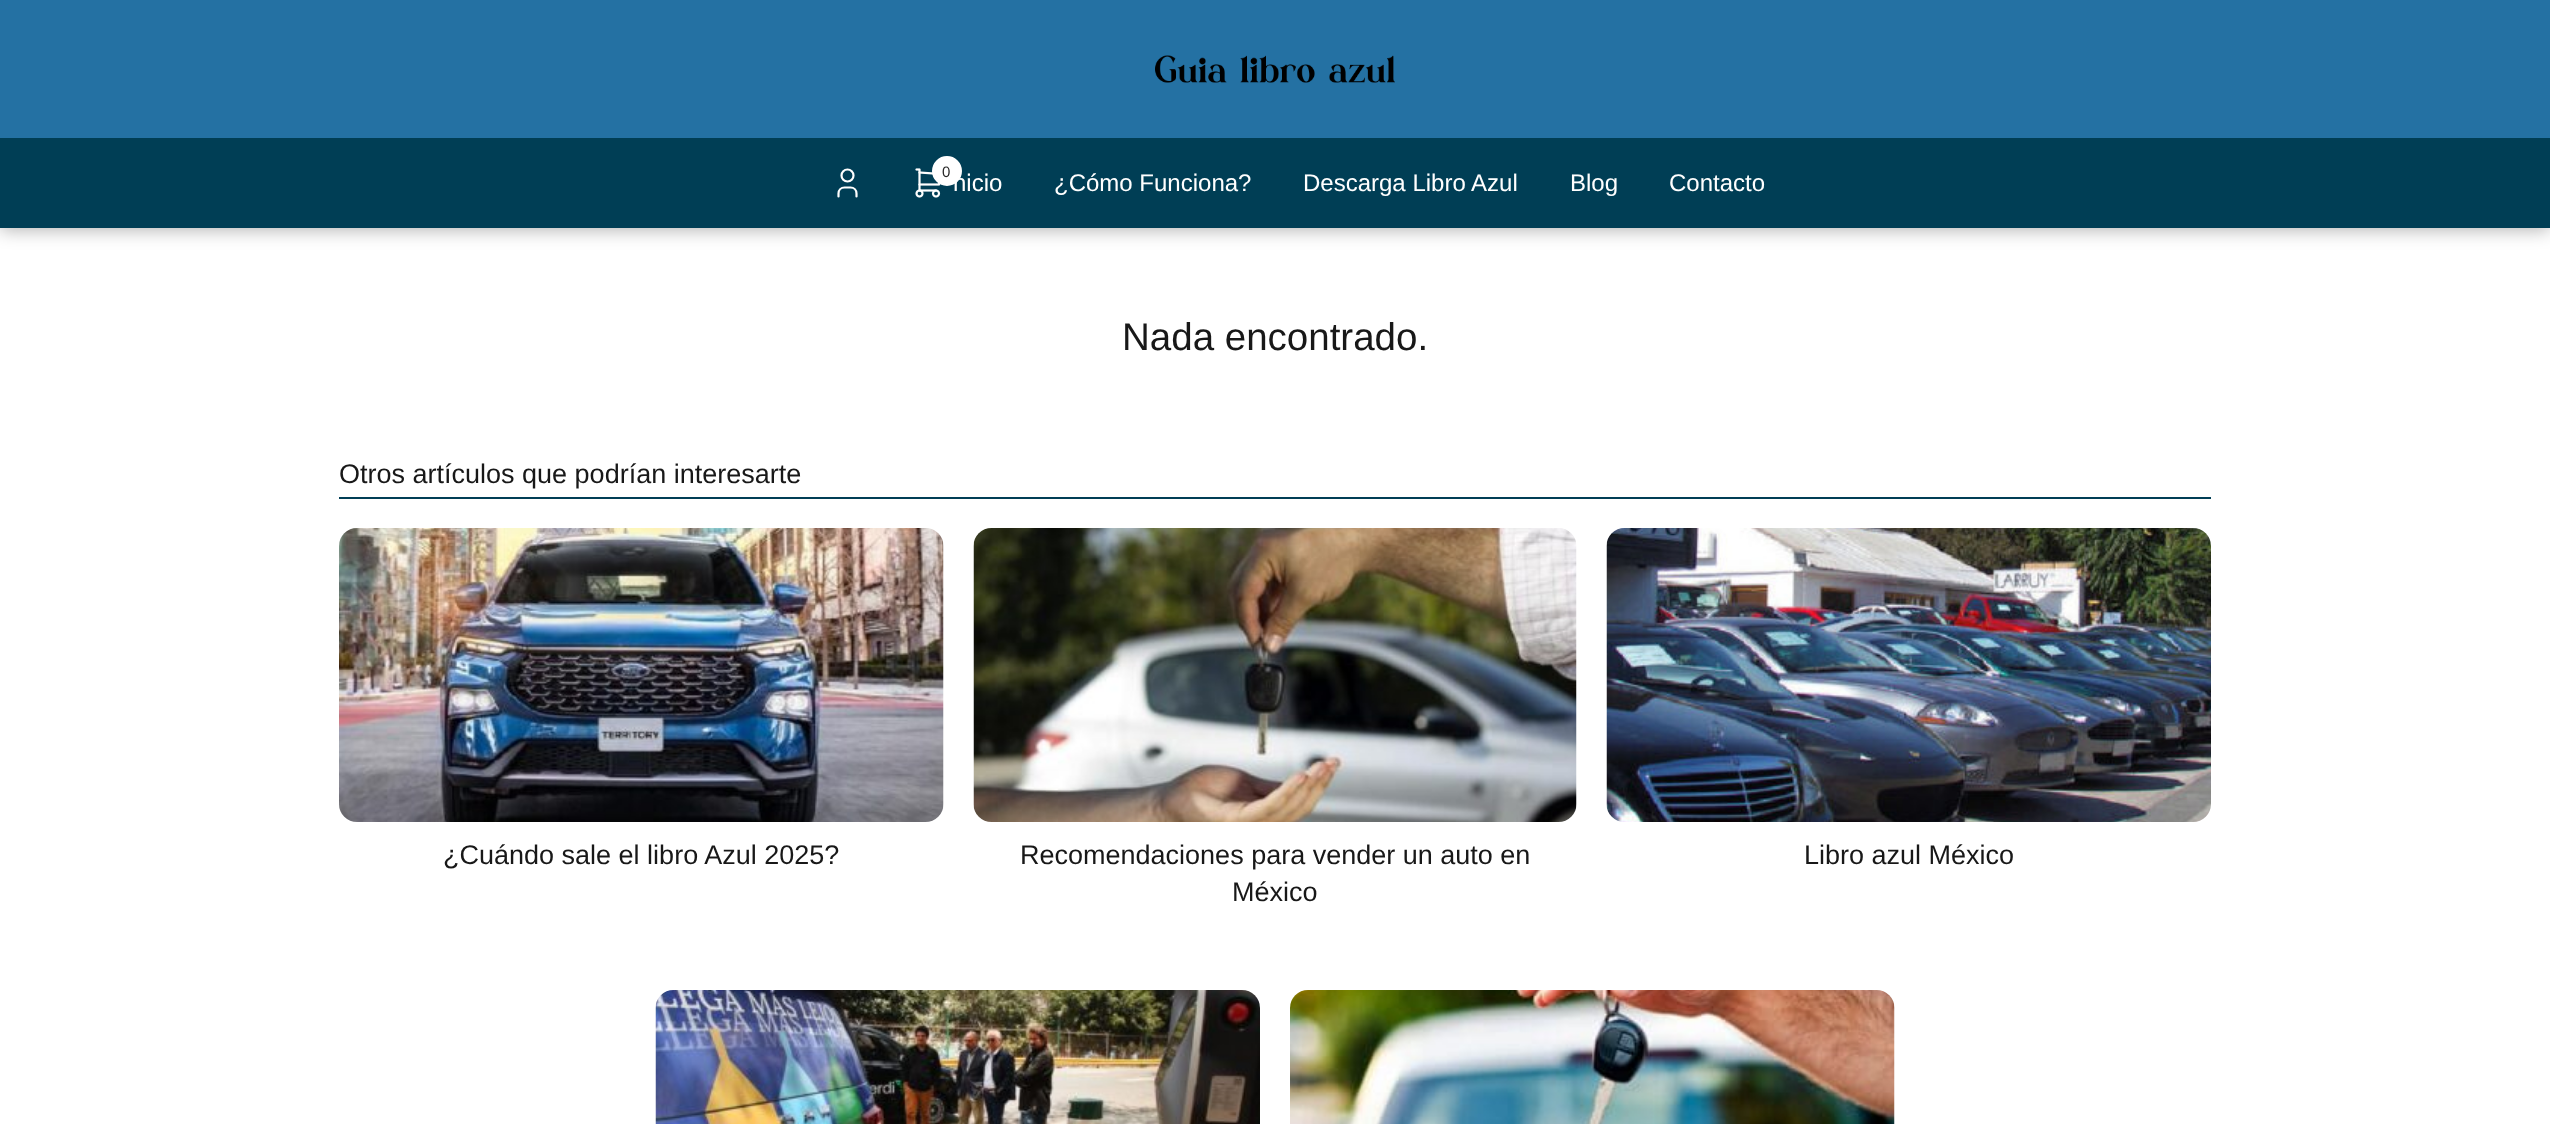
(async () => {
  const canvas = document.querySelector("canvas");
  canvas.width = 2550;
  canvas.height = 1124;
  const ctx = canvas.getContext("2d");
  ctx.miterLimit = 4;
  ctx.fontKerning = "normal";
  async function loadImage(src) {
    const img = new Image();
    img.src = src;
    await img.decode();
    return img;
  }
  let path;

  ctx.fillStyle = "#ffffff";
  ctx.fillRect(0, 0, 2550, 1124);
  ctx.fillStyle = "rgba(0, 0, 0, 0.3)";
  ctx.filter = "blur(9px)";
  ctx.beginPath();
  ctx.rect(0, 140, 2550, 90);
  ctx.fill();
  ctx.filter = "none";
  ctx.fillStyle = "#2471a3";
  ctx.fillRect(0, 0, 2550, 138);
  ctx.drawImage(await loadImage("img/1.png"), 1155, 55, 240, 28);
  ctx.fillStyle = "#003e55";
  ctx.fillRect(0, 138, 2550, 90);
  ctx.beginPath();
  ctx.arc(847.5, 175.5, 6, 0, Math.PI * 2);
  ctx.strokeStyle = "#ffffff";
  ctx.lineWidth = 2.2;
  ctx.stroke();
  ctx.drawImage(await loadImage("img/2.png"), 915, 168, 26, 30);
  ctx.fillStyle = "#ffffff";
  ctx.beginPath();
  ctx.arc(947, 171, 14, 0, Math.PI * 2);
  ctx.fill();
  ctx.lineWidth = 2;
  ctx.stroke();
  path = new Path2D("M838.5 196.5V193.5C838.5 190 841 187.5 844.5 187.5H850.5C854 187.5 856.5 190 856.5 193.5V196.5");
  ctx.lineWidth = 2.2;
  ctx.lineCap = "round";
  ctx.lineJoin = "round";
  ctx.stroke(path);
  ctx.fillStyle = "#003e55";
  ctx.fillRect(339, 497, 1872, 2);
  ctx.drawImage(await loadImage("img/3.png"), 339, 528, 605, 294);
  ctx.drawImage(await loadImage("img/4.png"), 973, 528, 604, 294);
  ctx.drawImage(await loadImage("img/5.png"), 1606, 528, 605, 294);
  ctx.drawImage(await loadImage("img/6.png"), 655, 990, 605, 134);
  ctx.drawImage(await loadImage("img/7.png"), 1290, 990, 605, 134);
  ctx.font = "15px Liberation Sans";
  ctx.fillStyle = "#282828";
  ctx.fillText("0", 942, 177);
  ctx.font = "24px Liberation Sans";
  ctx.fillStyle = "#ffffff";
  for (const [text, x, y] of [
    ["nicio", 953, 191],
    ["¿Cómo Funciona?", 1054, 191],
    ["Descarga Libro Azul", 1303, 191],
    ["Blog", 1570, 191],
    ["Contacto", 1669, 191],
  ]) {
    ctx.fillText(text, x, y);
  }
  ctx.font = "38.5px Liberation Sans";
  ctx.fillStyle = "#181818";
  ctx.fillText("Nada encontrado.", 1122, 350);
  ctx.font = "27px Liberation Sans";
  for (const [text, x, y] of [
    ["Otros artículos que podrían interesarte", 339, 483],
    ["¿Cuándo sale el libro Azul 2025?", 443, 864],
    ["Recomendaciones para vender un auto en", 1020, 864],
    ["México", 1232, 901],
    ["Libro azul México", 1804, 864],
  ]) {
    ctx.fillText(text, x, y);
  }
})();
